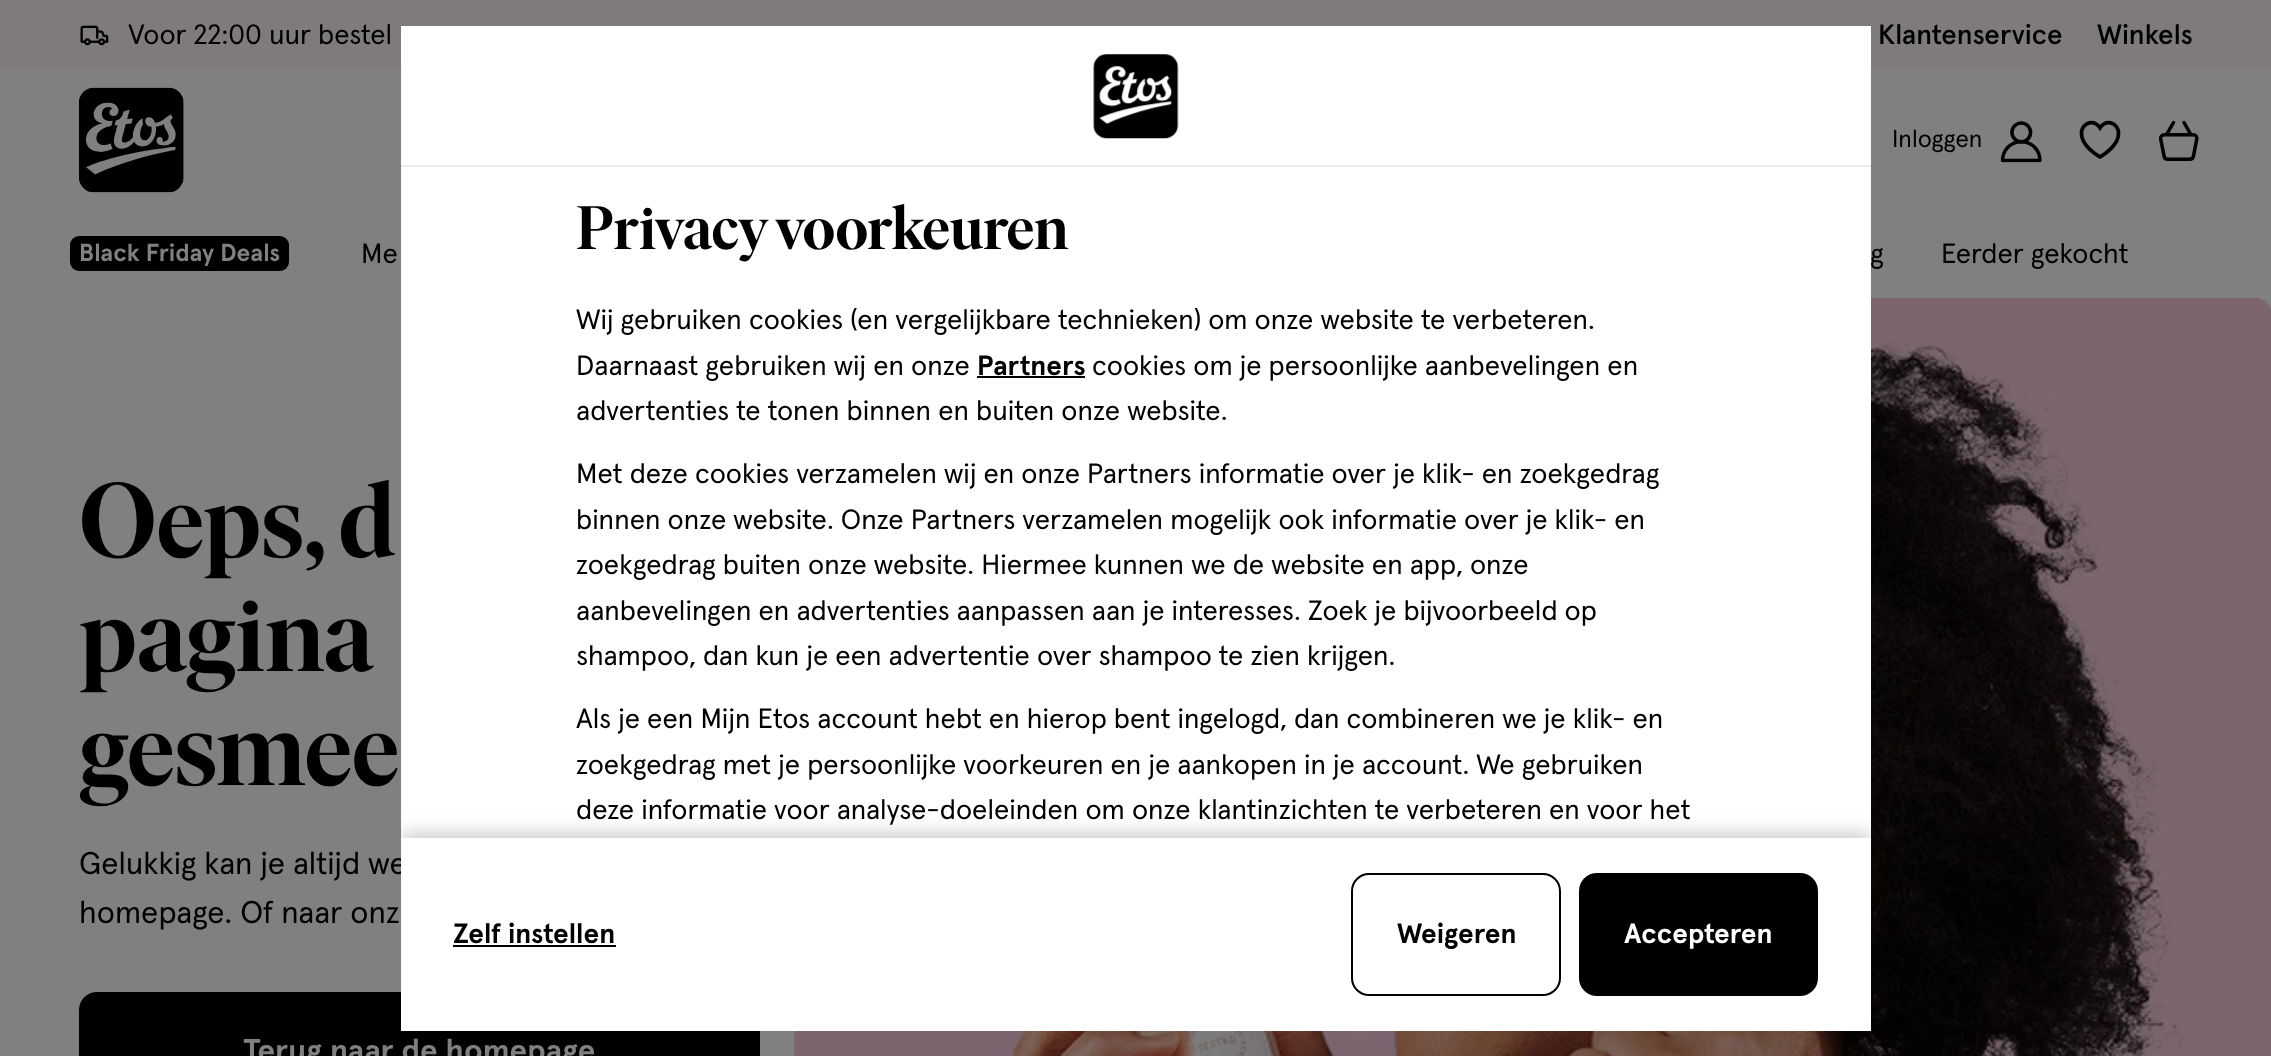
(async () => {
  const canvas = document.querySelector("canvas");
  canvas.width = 2271;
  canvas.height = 1056;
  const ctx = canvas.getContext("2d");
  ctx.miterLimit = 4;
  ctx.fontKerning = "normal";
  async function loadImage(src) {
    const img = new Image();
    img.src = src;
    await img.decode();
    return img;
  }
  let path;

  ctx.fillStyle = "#808080";
  ctx.fillRect(0, 0, 2271, 1056);
  ctx.fillStyle = "#7f7b7d";
  ctx.fillRect(0, 0, 2271, 70);
  ctx.drawImage(await loadImage("img/1.png"), 80, 25, 29, 21);
  ctx.drawImage(await loadImage("img/2.png"), 79, 87, 105, 106);
  ctx.drawImage(await loadImage("img/3.png"), 2000, 121, 42, 42);
  ctx.drawImage(await loadImage("img/4.png"), 2079, 120, 42, 39);
  ctx.drawImage(await loadImage("img/5.png"), 2159, 120, 40, 41);
  ctx.fillStyle = "#000000";
  ctx.beginPath();
  ctx.roundRect(70, 236, 219, 35, 9);
  ctx.fill();
  ctx.beginPath();
  ctx.roundRect(79, 992, 681, 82, 18);
  ctx.fill();
  ctx.drawImage(await loadImage("img/6.png"), 794, 298, 1477, 758);
  ctx.font = "28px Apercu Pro";
  ctx.fillText("Voor 22:00 uur bestel", 128, 44);
  ctx.font = "500 28px Apercu Pro";
  ctx.fillText("Klantenservice", 1878, 44);
  ctx.fillText("Winkels", 2097, 44);
  ctx.font = "24.5px Apercu Pro";
  ctx.fillText("Inloggen", 1892, 147);
  ctx.font = "bold 24.5px Apercu Pro";
  ctx.fillStyle = "#808080";
  ctx.fillText("Black Friday Deals", 79, 261);
  ctx.font = "28px Apercu Pro";
  ctx.fillStyle = "#000000";
  for (const [text, x, y] of [
    ["Me", 361, 263],
    ["g", 1870, 263],
    ["Eerder gekocht", 1941, 263],
  ]) {
    ctx.fillText(text, x, y);
  }
  ctx.font = "600 105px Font";
  for (const [text, x, y] of [
    ["Oeps, d", 79, 557],
    ["pagina", 79, 671],
    ["gesmee", 79, 785],
  ]) {
    ctx.fillText(text, x, y);
  }
  ctx.font = "31.5px Apercu Pro";
  ctx.fillText("Gelukkig kan je altijd we", 79, 874);
  ctx.fillText("homepage. Of naar onz", 79, 923);
  ctx.font = "bold 31.5px Apercu Pro";
  ctx.fillStyle = "#808080";
  ctx.fillText("Terug naar de homepage", 243, 1061);
  ctx.fillStyle = "#ffffff";
  ctx.fillRect(401, 26, 1470, 1005);
  ctx.fillStyle = "#ebebeb";
  ctx.fillRect(401, 165, 1470, 2);
  ctx.drawImage(await loadImage("img/7.png"), 1093, 54, 86, 85);
  ctx.font = "600 61.25px Font";
  ctx.fillStyle = "#000000";
  ctx.fillText("Privacy voorkeuren", 576, 249);
  ctx.font = "28px Apercu Pro";
  ctx.fillText("Wij gebruiken cookies (en vergelijkbare technieken) om onze website te verbeteren.", 576, 329);
  ctx.fillText("Daarnaast gebruiken wij en onze", 576, 375);
  ctx.font = "bold 28px Apercu Pro";
  ctx.fillText("Partners", 977, 375);
  ctx.fillRect(977, 376, 108, 2);
  ctx.font = "28px Apercu Pro";
  for (const [text, x, y] of [
    ["cookies om je persoonlijke aanbevelingen en", 1092, 375],
    ["advertenties te tonen binnen en buiten onze website.", 576, 420],
    ["Met deze cookies verzamelen wij en onze Partners informatie over je klik- en zoekgedrag", 576, 483],
    ["binnen onze website. Onze Partners verzamelen mogelijk ook informatie over je klik- en", 576, 529],
    ["zoekgedrag buiten onze website. Hiermee kunnen we de website en app, onze", 576, 574],
    ["aanbevelingen en advertenties aanpassen aan je interesses. Zoek je bijvoorbeeld op", 576, 620],
    ["shampoo, dan kun je een advertentie over shampoo te zien krijgen.", 576, 665],
    ["Als je een Mijn Etos account hebt en hierop bent ingelogd, dan combineren we je klik- en", 576, 728],
    ["zoekgedrag met je persoonlijke voorkeuren en je aankopen in je account. We gebruiken", 576, 774],
  ]) {
    ctx.fillText(text, x, y);
  }
  ctx.save();
  ctx.beginPath();
  ctx.rect(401, 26, 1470, 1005);
  ctx.clip();
  path = new Path2D("M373 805H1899V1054H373ZM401 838H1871V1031H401Z");
  ctx.clip(path, "evenodd");
  ctx.fillStyle = "#cccccc";
  ctx.filter = "blur(9px)";
  ctx.beginPath();
  ctx.rect(401, 833, 1470, 193);
  ctx.fill();
  ctx.filter = "none";
  ctx.restore();
  ctx.fillText("deze informatie voor analyse-doeleinden om onze klantinzichten te verbeteren en voor het", 576, 819);
  ctx.font = "bold 28px Apercu Pro";
  ctx.fillText("Zelf instellen", 453, 943);
  ctx.fillRect(453, 945, 163, 2);
  ctx.beginPath();
  ctx.roundRect(1352, 874, 208, 121, 17);
  ctx.strokeStyle = "#000000";
  ctx.lineWidth = 2;
  ctx.stroke();
  ctx.fillText("Weigeren", 1397, 943);
  ctx.beginPath();
  ctx.roundRect(1579, 873, 239, 123, 18);
  ctx.fill();
  ctx.fillStyle = "#ffffff";
  ctx.fillText("Accepteren", 1624, 943);
})();
